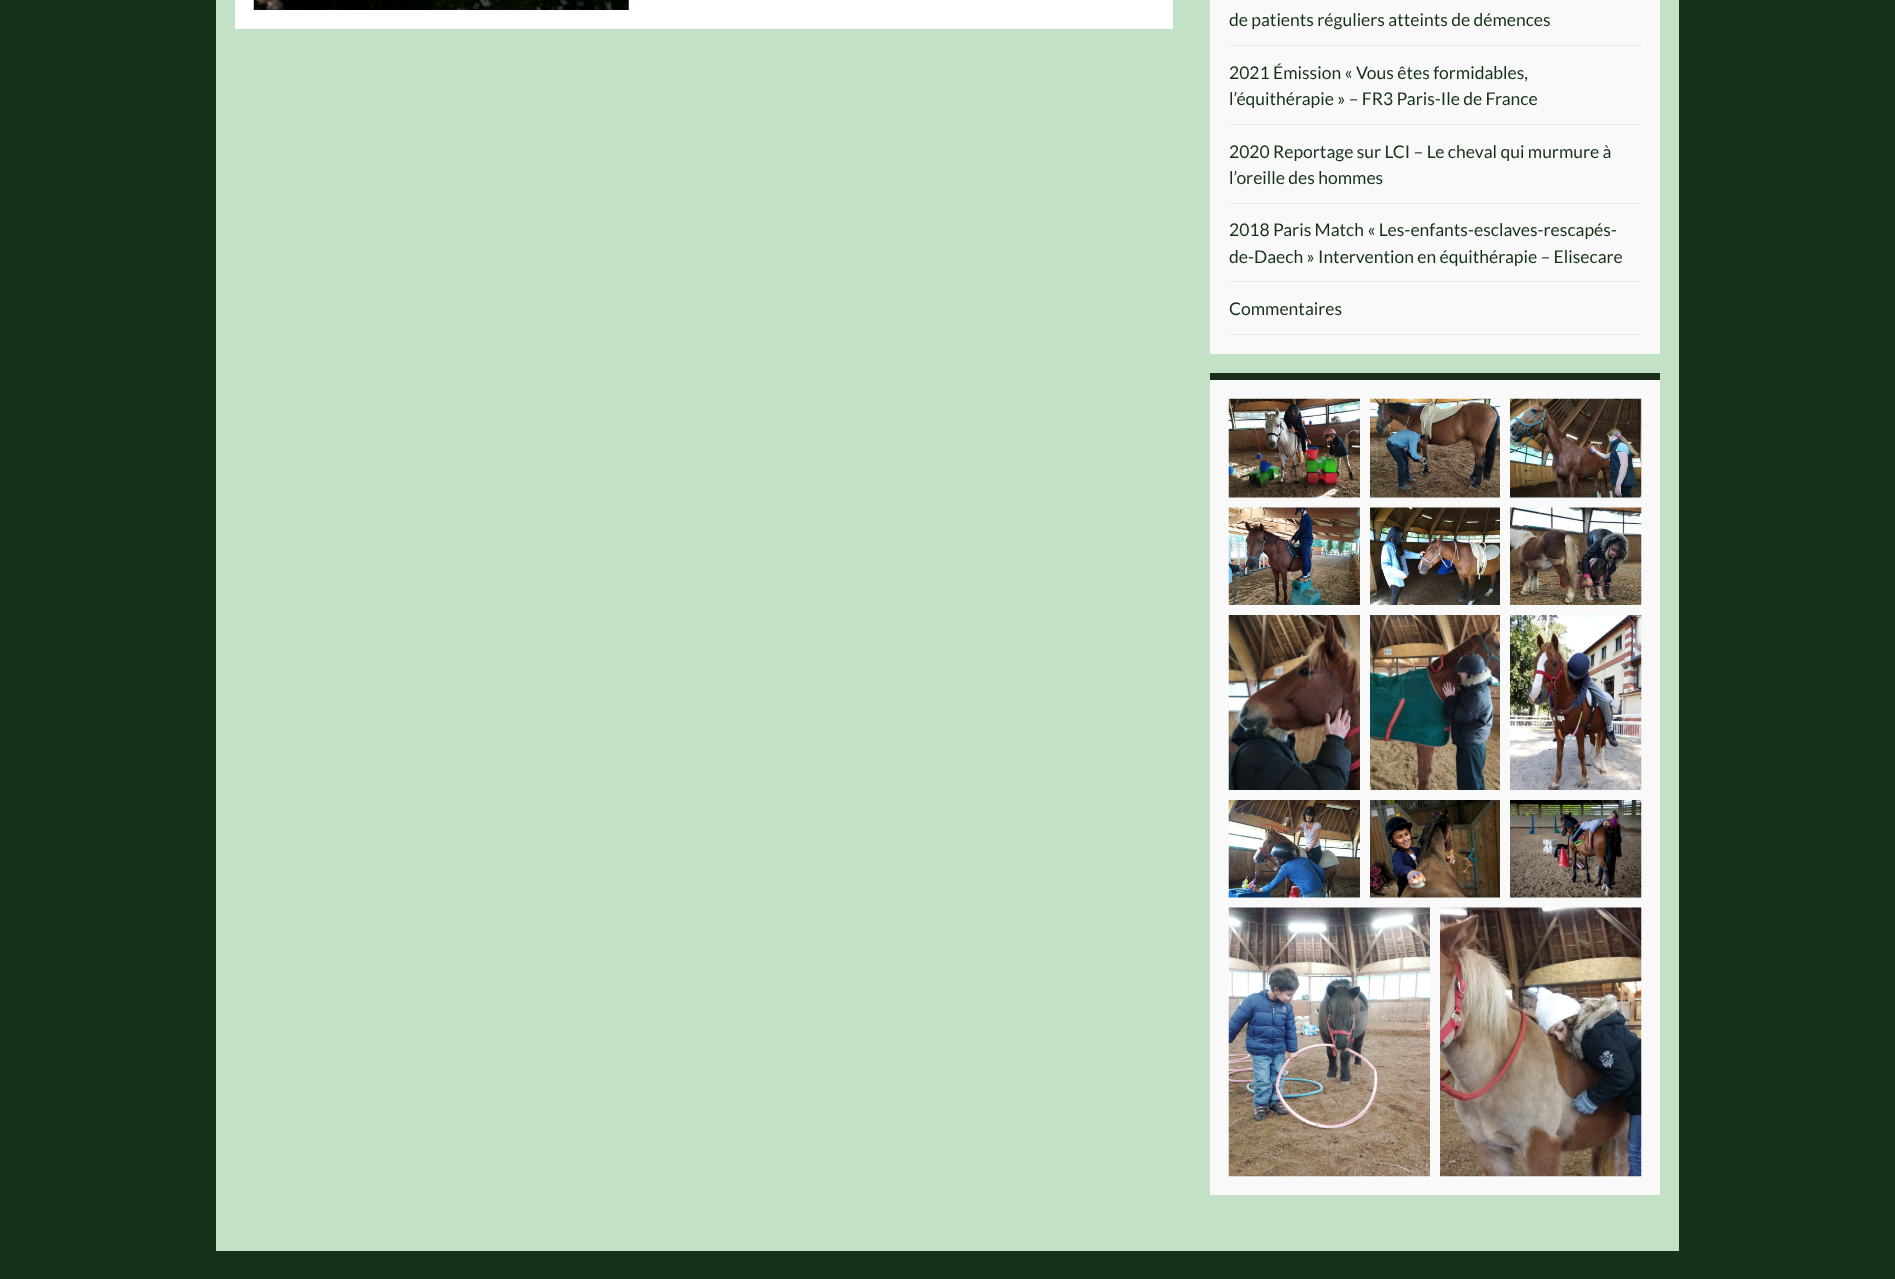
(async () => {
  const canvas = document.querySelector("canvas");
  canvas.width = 1895;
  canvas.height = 1279;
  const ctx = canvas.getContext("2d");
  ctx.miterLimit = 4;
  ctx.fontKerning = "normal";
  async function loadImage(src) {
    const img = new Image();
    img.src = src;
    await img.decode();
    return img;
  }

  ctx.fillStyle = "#183219";
  ctx.fillRect(0, 0, 1895, 1279);
  ctx.fillStyle = "#c3e1c4";
  ctx.fillRect(216, 0, 1463, 1251);
  ctx.fillStyle = "#ffffff";
  ctx.fillRect(235, 0, 938, 29);
  ctx.drawImage(await loadImage("img/1.png"), 253, 0, 376, 10);
  for (const [x, y, w, h, color] of [
    [1210, 0, 450, 354, "#f9f9f9"],
    [1229, 45, 412, 1, "#e9e9e9"],
    [1229, 124, 412, 1, "#e9e9e9"],
    [1229, 203, 412, 1, "#e9e9e9"],
    [1229, 281, 412, 1, "#e9e9e9"],
    [1229, 334, 412, 1, "#e9e9e9"],
    [1210, 380, 450, 815, "#f9f9f9"],
    [1210, 373, 450, 7, "#192d1a"],
  ]) {
    ctx.fillStyle = color;
    ctx.fillRect(x, y, w, h);
  }
  ctx.drawImage(await loadImage("img/2.png"), 1228, 398, 132, 100);
  ctx.drawImage(await loadImage("img/3.png"), 1370, 398, 130, 100);
  ctx.drawImage(await loadImage("img/4.png"), 1510, 398, 132, 100);
  ctx.drawImage(await loadImage("img/5.png"), 1228, 507, 132, 98);
  ctx.drawImage(await loadImage("img/6.png"), 1370, 507, 130, 98);
  ctx.drawImage(await loadImage("img/7.png"), 1510, 507, 132, 98);
  ctx.drawImage(await loadImage("img/8.png"), 1228, 615, 132, 175);
  ctx.drawImage(await loadImage("img/9.png"), 1370, 615, 130, 175);
  ctx.drawImage(await loadImage("img/10.png"), 1510, 615, 132, 175);
  ctx.drawImage(await loadImage("img/11.png"), 1228, 800, 132, 98);
  ctx.drawImage(await loadImage("img/12.png"), 1370, 800, 130, 98);
  ctx.drawImage(await loadImage("img/13.png"), 1510, 800, 132, 98);
  ctx.drawImage(await loadImage("img/14.png"), 1228, 907, 202, 270);
  ctx.drawImage(await loadImage("img/15.png"), 1440, 907, 202, 270);
  ctx.font = "17.5px Lato";
  ctx.fillStyle = "#183219";
  for (const [text, x, y] of [
    ["de patients réguliers atteints de démences", 1229, 26],
    ["2021 Émission « Vous êtes formidables,", 1229, 79],
    ["l’équithérapie » – FR3 Paris-Ile de France", 1229, 105],
    ["2020 Reportage sur LCI – Le cheval qui murmure à", 1229, 158],
    ["l’oreille des hommes", 1229, 184],
    ["2018 Paris Match « Les-enfants-esclaves-rescapés-", 1229, 236],
    ["de-Daech » Intervention en équithérapie – Elisecare", 1229, 263],
    ["Commentaires", 1229, 315],
  ]) {
    ctx.fillText(text, x, y);
  }
})();
